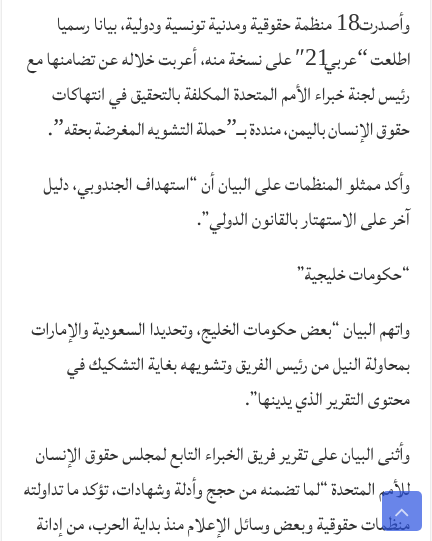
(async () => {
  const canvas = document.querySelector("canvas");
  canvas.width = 432;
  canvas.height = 541;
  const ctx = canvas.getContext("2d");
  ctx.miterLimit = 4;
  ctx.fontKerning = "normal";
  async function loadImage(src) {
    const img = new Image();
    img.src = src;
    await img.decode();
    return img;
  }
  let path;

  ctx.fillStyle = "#ffffff";
  ctx.fillRect(0, 0, 432, 541);
  ctx.save();
  path = new Path2D("M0 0H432V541H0ZM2-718H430V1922H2Z");
  ctx.clip(path, "evenodd");
  ctx.fillStyle = "#cacaca";
  ctx.filter = "blur(1.5px)";
  ctx.beginPath();
  ctx.rect(2, -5, 428, 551);
  ctx.fill();
  ctx.filter = "none";
  ctx.restore();
  ctx.font = "24px Liberation Serif";
  ctx.fillStyle = "#333333";
  ctx.fillText("18", 336, 30);
  ctx.direction = "rtl";
  ctx.font = "24px Lateef";
  for (const [text, x, y] of [
    ["وأصدرت", 410, 30],
    ["منظمة حقوقية ومدنية تونسية ودولية، بيانا رسميا", 332, 30],
    ["اطلعت", 411, 65],
  ]) {
    ctx.fillText(text, x, y);
  }
  ctx.font = "24px Liberation Serif";
  ctx.fillText("“", 368, 65);
  ctx.direction = "ltr";
  ctx.fillText("21", 305, 65);
  ctx.direction = "rtl";
  ctx.font = "24px Lateef";
  ctx.fillText("عربي", 357, 65);
  ctx.font = "24px Liberation Serif";
  ctx.fillText("″", 305, 65);
  ctx.font = "24px Lateef";
  ctx.fillText("على نسخة منه، أعربت خلاله عن تضامنها مع", 292, 65);
  ctx.fillText("رئيس لجنة خبراء الأمم المتحدة المكلفة بالتحقيق في انتهاكات", 410, 100);
  ctx.wordSpacing = "-1px";
  ctx.fillText("حملة التشويه المغرضة بحقه", 226, 135);
  ctx.wordSpacing = "0px";
  ctx.font = "24px Liberation Serif";
  ctx.fillText("”", 237, 135);
  ctx.wordSpacing = "-1px";
  ctx.font = "24px Lateef";
  ctx.fillText("حقوق الإنسان باليمن، منددة بــ", 410, 135);
  ctx.wordSpacing = "0px";
  ctx.font = "24px Liberation Serif";
  ctx.fillText("”.", 64, 135);
  ctx.font = "24px Lateef";
  ctx.fillText("وأكد ممثلو المنظمات على البيان أن “استهداف الجندوبي، دليل", 410, 190);
  ctx.fillText("آخر على الاستهتار بالقانون الدولي”.", 410, 225);
  ctx.wordSpacing = "-1px";
  ctx.fillText("“حكومات خليجية”", 410, 280);
  ctx.wordSpacing = "0px";
  for (const [text, x, y] of [
    ["واتهم البيان “بعض حكومات الخليج، وتحديدا السعودية والإمارات", 410, 335],
    ["بمحاولة النيل من رئيس الفريق وتشويهه بغاية التشكيك في", 410, 370],
    ["محتوى التقرير الذي يدينها”.", 410, 405],
    ["وأثنى البيان على تقرير فريق الخبراء التابع لمجلس حقوق الإنسان", 410, 460],
    ["للأمم المتحدة “لما تضمنه من حجج وأدلة وشهادات، تؤكد ما تداولته", 410, 495],
    ["منظمات حقوقية وبعض وسائل الإعلام منذ بداية الحرب، من إدانة", 410, 530],
  ]) {
    ctx.fillText(text, x, y);
  }
  ctx.fillStyle = "rgba(42, 81, 223, 0.7)";
  ctx.beginPath();
  ctx.roundRect(382, 491, 40, 40, 5);
  ctx.fill();
  ctx.drawImage(await loadImage("img/1.png"), 395, 508, 14, 9);
})();
